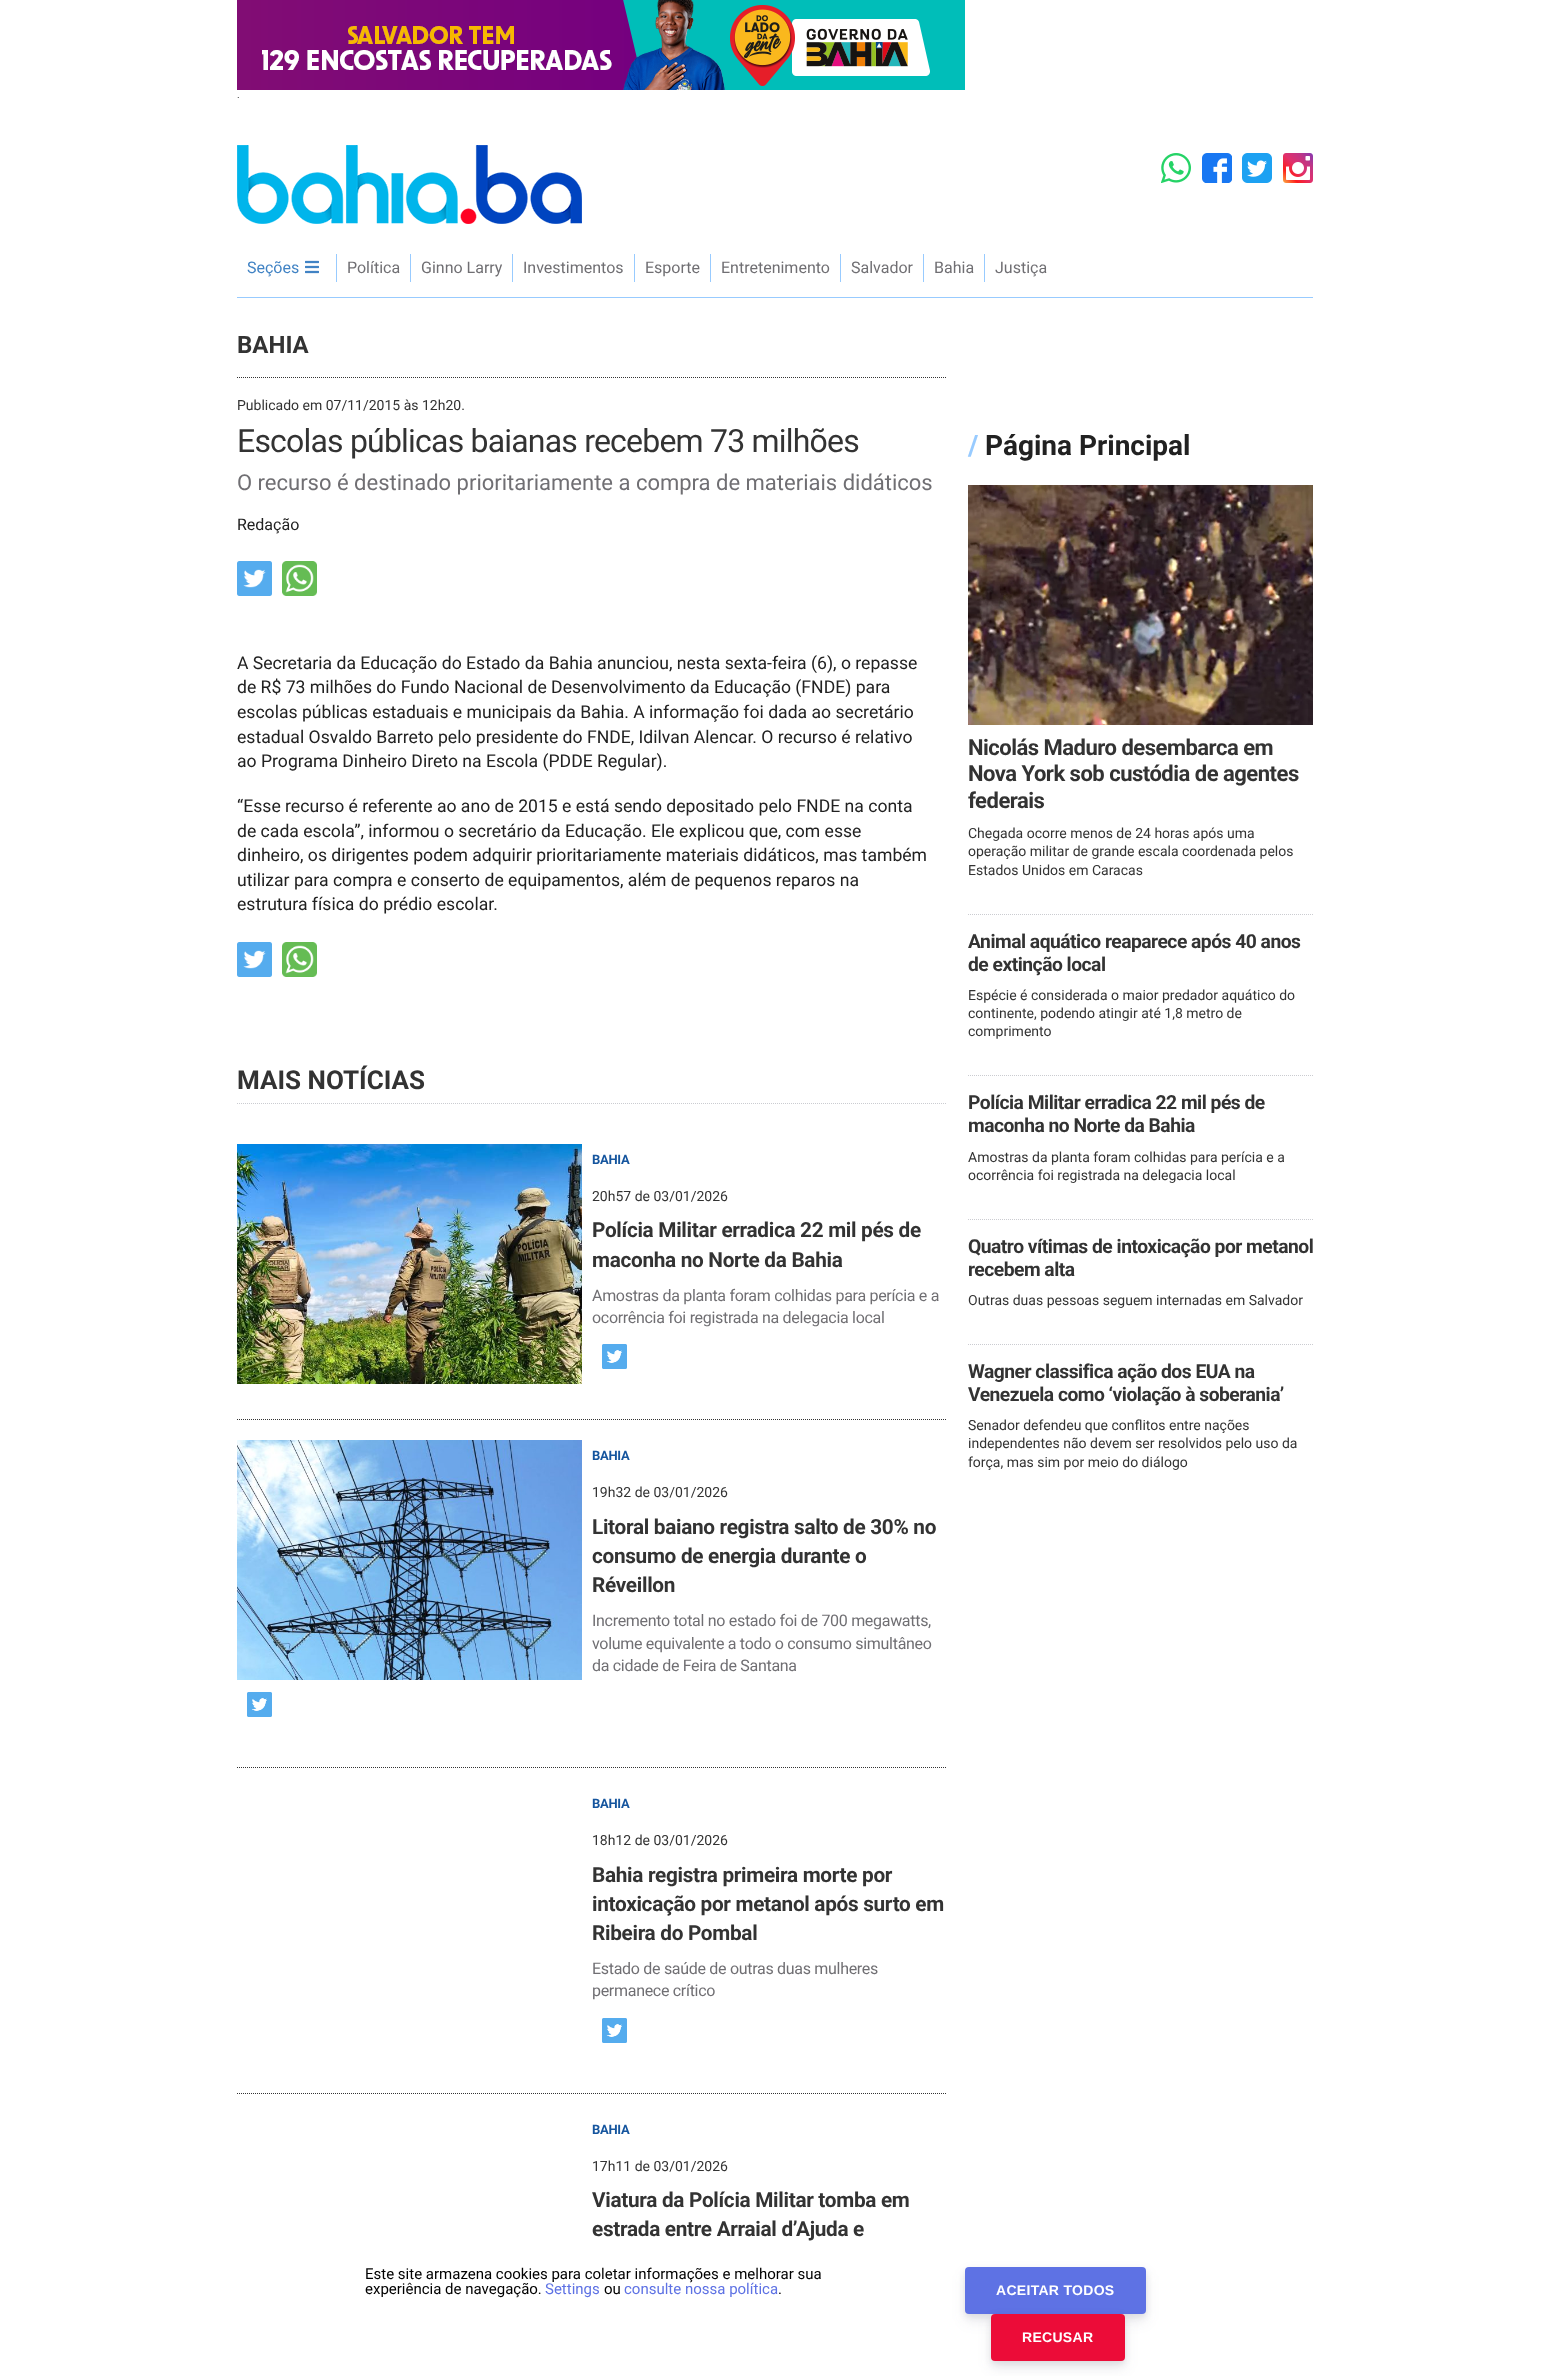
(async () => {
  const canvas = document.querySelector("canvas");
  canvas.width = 1549;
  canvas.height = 2376;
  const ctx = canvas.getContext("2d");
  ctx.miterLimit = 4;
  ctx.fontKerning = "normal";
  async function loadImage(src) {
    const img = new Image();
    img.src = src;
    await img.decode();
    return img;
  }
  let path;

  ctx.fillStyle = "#ffffff";
  ctx.fillRect(0, 0, 1549, 2376);
  ctx.drawImage(await loadImage("img/1.png"), 237, 0, 728, 90);
  ctx.fillStyle = "#98cbff";
  ctx.fillRect(237, 297, 1076, 1);
  ctx.drawImage(await loadImage("img/2.png"), 237, 145, 345, 79);
  ctx.drawImage(await loadImage("img/3.png"), 1161, 153, 30, 30);
  ctx.drawImage(await loadImage("img/4.png"), 1202, 153, 30, 30);
  ctx.drawImage(await loadImage("img/5.png"), 1242, 153, 30, 30);
  ctx.drawImage(await loadImage("img/6.png"), 1283, 153, 30, 30);
  ctx.fillRect(336, 254, 1, 28);
  ctx.drawImage(await loadImage("img/7.png"), 305, 260, 14, 14);
  for (const [x, y, w, h, color] of [
    [410, 254, 1, 28, "#98cbff"],
    [512, 254, 1, 28, "#98cbff"],
    [634, 254, 1, 28, "#98cbff"],
    [710, 254, 1, 28, "#98cbff"],
    [840, 254, 1, 28, "#98cbff"],
    [923, 254, 1, 28, "#98cbff"],
    [984, 254, 1, 28, "#98cbff"],
  ]) {
    ctx.fillStyle = color;
    ctx.fillRect(x, y, w, h);
  }
  path = new Path2D("M237 377.5H947");
  ctx.strokeStyle = "#333333";
  ctx.setLineDash([1, 1]);
  ctx.stroke(path);
  ctx.drawImage(await loadImage("img/8.png"), 237, 561, 35, 35);
  ctx.drawImage(await loadImage("img/9.png"), 282, 561, 35, 35);
  ctx.drawImage(await loadImage("img/10.png"), 237, 942, 35, 35);
  ctx.drawImage(await loadImage("img/11.png"), 282, 942, 35, 35);
  path = new Path2D("M237 1103.5H947");
  ctx.strokeStyle = "#cbccd1";
  ctx.stroke(path);
  path = new Path2D("M237 1419.5H947");
  ctx.strokeStyle = "#333333";
  ctx.stroke(path);
  ctx.drawImage(await loadImage("img/12.png"), 237, 1144, 345, 240);
  ctx.drawImage(await loadImage("img/13.png"), 602, 1344, 25, 25);
  path = new Path2D("M237 1767.5H947");
  ctx.stroke(path);
  ctx.drawImage(await loadImage("img/14.png"), 237, 1440, 345, 240);
  ctx.drawImage(await loadImage("img/15.png"), 247, 1692, 25, 25);
  path = new Path2D("M237 2093.5H947");
  ctx.stroke(path);
  ctx.drawImage(await loadImage("img/13.png"), 602, 2018, 25, 25);
  path = new Path2D("M968 914.5H1313");
  ctx.strokeStyle = "#cbccd1";
  ctx.stroke(path);
  ctx.drawImage(await loadImage("img/16.png"), 968, 485, 345, 240);
  path = new Path2D("M968 1075.5H1313");
  ctx.stroke(path);
  path = new Path2D("M968 1219.5H1313");
  ctx.stroke(path);
  path = new Path2D("M968 1344.5H1313");
  ctx.stroke(path);
  ctx.fillStyle = "rgba(0, 0, 0, 0.08)";
  ctx.filter = "blur(3px)";
  ctx.beginPath();
  ctx.roundRect(965, 2270, 181, 47, 4);
  ctx.fill();
  ctx.filter = "none";
  ctx.fillStyle = "rgba(50, 50, 93, 0.1)";
  ctx.filter = "blur(7px)";
  ctx.beginPath();
  ctx.roundRect(965, 2274, 181, 47, 4);
  ctx.fill();
  ctx.filter = "none";
  ctx.fillStyle = "#5e72e4";
  ctx.beginPath();
  ctx.roundRect(965, 2267, 181, 47, 4);
  ctx.fill();
  ctx.fillStyle = "rgba(0, 0, 0, 0.08)";
  ctx.filter = "blur(3px)";
  ctx.beginPath();
  ctx.roundRect(991, 2317, 134, 47, 4);
  ctx.fill();
  ctx.filter = "none";
  ctx.fillStyle = "rgba(50, 50, 93, 0.1)";
  ctx.filter = "blur(7px)";
  ctx.beginPath();
  ctx.roundRect(991, 2321, 134, 47, 4);
  ctx.fill();
  ctx.filter = "none";
  ctx.fillStyle = "#ec0c38";
  ctx.beginPath();
  ctx.roundRect(991, 2314, 134, 47, 4);
  ctx.fill();
  ctx.font = "10px Roboto";
  ctx.fillStyle = "#212121";
  ctx.fillText(".", 237, 98);
  ctx.font = "16px Roboto";
  ctx.fillStyle = "#4183c4";
  ctx.fillText("Seções", 247, 273);
  ctx.fillStyle = "#706f73";
  for (const [text, x, y] of [
    ["Política", 347, 273],
    ["Ginno Larry", 421, 273],
    ["Investimentos", 523, 273],
    ["Esporte", 645, 273],
    ["Entretenimento", 721, 273],
    ["Salvador", 851, 273],
    ["Bahia", 934, 273],
    ["Justiça", 995, 273],
  ]) {
    ctx.fillText(text, x, y);
  }
  ctx.font = "bold 24px Roboto";
  ctx.fillStyle = "#333333";
  ctx.fillText("BAHIA", 237, 353);
  ctx.font = "14px Roboto";
  ctx.fillText("Publicado em 07/11/2015 às 12h20.", 237, 410);
  ctx.letterSpacing = "-0.8px";
  ctx.font = "32px Roboto";
  ctx.fillText("Escolas públicas baianas recebem 73 milhões", 237, 452);
  ctx.letterSpacing = "0px";
  ctx.font = "22px Roboto";
  ctx.fillStyle = "#706f73";
  ctx.fillText("O recurso é destinado prioritariamente a compra de materiais didáticos", 237, 490);
  ctx.font = "16px Roboto";
  ctx.fillStyle = "#212121";
  ctx.fillText("Redação", 237, 530);
  ctx.font = "17.6px Roboto";
  for (const [text, x, y] of [
    ["A Secretaria da Educação do Estado da Bahia anunciou, nesta sexta-feira (6), o repasse", 237, 669],
    ["de R$ 73 milhões do Fundo Nacional de Desenvolvimento da Educação (FNDE) para", 237, 693],
    ["escolas públicas estaduais e municipais da Bahia. A informação foi dada ao secretário", 237, 718],
    ["estadual Osvaldo Barreto pelo presidente do FNDE, Idilvan Alencar. O recurso é relativo", 237, 743],
    ["ao Programa Dinheiro Direto na Escola (PDDE Regular).", 237, 767],
    ["“Esse recurso é referente ao ano de 2015 e está sendo depositado pelo FNDE na conta", 237, 812],
    ["de cada escola”, informou o secretário da Educação. Ele explicou que, com esse", 237, 837],
    ["dinheiro, os dirigentes podem adquirir prioritariamente materiais didáticos, mas também", 237, 861],
    ["utilizar para compra e conserto de equipamentos, além de pequenos reparos na", 237, 886],
    ["estrutura física do prédio escolar.", 237, 910],
  ]) {
    ctx.fillText(text, x, y);
  }
  ctx.font = "bold 26px Roboto";
  ctx.fillStyle = "#333333";
  ctx.fillText("MAIS NOTÍCIAS", 237, 1089);
  ctx.letterSpacing = "-0.3px";
  ctx.font = "bold 13px Roboto";
  ctx.fillStyle = "#15559e";
  ctx.fillText("BAHIA", 592, 1164);
  ctx.letterSpacing = "0px";
  ctx.font = "14px Roboto";
  ctx.fillStyle = "#333333";
  ctx.fillText("20h57 de 03/01/2026", 592, 1201);
  ctx.letterSpacing = "-0.3px";
  ctx.font = "bold 20.75px Roboto";
  ctx.fillText("Polícia Militar erradica 22 mil pés de", 592, 1237);
  ctx.fillText("maconha no Norte da Bahia", 592, 1267);
  ctx.font = "16px Roboto";
  ctx.fillStyle = "#706f73";
  ctx.fillText("Amostras da planta foram colhidas para perícia e a", 592, 1301);
  ctx.fillText("ocorrência foi registrada na delegacia local", 592, 1323);
  ctx.font = "bold 13px Roboto";
  ctx.fillStyle = "#15559e";
  ctx.fillText("BAHIA", 592, 1460);
  ctx.letterSpacing = "0px";
  ctx.font = "14px Roboto";
  ctx.fillStyle = "#333333";
  ctx.fillText("19h32 de 03/01/2026", 592, 1497);
  ctx.letterSpacing = "-0.3px";
  ctx.font = "bold 20.75px Roboto";
  for (const [text, x, y] of [
    ["Litoral baiano registra salto de 30% no", 592, 1534],
    ["consumo de energia durante o", 592, 1563],
    ["Réveillon", 592, 1592],
  ]) {
    ctx.fillText(text, x, y);
  }
  ctx.font = "16px Roboto";
  ctx.fillStyle = "#706f73";
  for (const [text, x, y] of [
    ["Incremento total no estado foi de 700 megawatts,", 592, 1626],
    ["volume equivalente a todo o consumo simultâneo", 592, 1649],
    ["da cidade de Feira de Santana", 592, 1671],
  ]) {
    ctx.fillText(text, x, y);
  }
  ctx.font = "bold 13px Roboto";
  ctx.fillStyle = "#15559e";
  ctx.fillText("BAHIA", 592, 1808);
  ctx.letterSpacing = "0px";
  ctx.font = "14px Roboto";
  ctx.fillStyle = "#333333";
  ctx.fillText("18h12 de 03/01/2026", 592, 1845);
  ctx.letterSpacing = "-0.3px";
  ctx.font = "bold 20.75px Roboto";
  for (const [text, x, y] of [
    ["Bahia registra primeira morte por", 592, 1882],
    ["intoxicação por metanol após surto em", 592, 1911],
    ["Ribeira do Pombal", 592, 1940],
  ]) {
    ctx.fillText(text, x, y);
  }
  ctx.font = "16px Roboto";
  ctx.fillStyle = "#706f73";
  ctx.fillText("Estado de saúde de outras duas mulheres", 592, 1974);
  ctx.fillText("permanece crítico", 592, 1996);
  ctx.font = "bold 13px Roboto";
  ctx.fillStyle = "#15559e";
  ctx.fillText("BAHIA", 592, 2134);
  ctx.letterSpacing = "0px";
  ctx.font = "14px Roboto";
  ctx.fillStyle = "#333333";
  ctx.fillText("17h11 de 03/01/2026", 592, 2171);
  ctx.letterSpacing = "-0.3px";
  ctx.font = "bold 20.75px Roboto";
  ctx.fillText("Viatura da Polícia Militar tomba em", 592, 2207);
  ctx.fillText("estrada entre Arraial d’Ajuda e", 592, 2236);
  ctx.letterSpacing = "0px";
  ctx.font = "bold 28px Roboto";
  ctx.fillStyle = "#98cbff";
  ctx.fillText("/", 968, 455);
  ctx.fillStyle = "#212121";
  ctx.fillText("Página Principal", 985, 455);
  ctx.letterSpacing = "-0.5px";
  ctx.font = "bold 22px Roboto";
  ctx.fillStyle = "#333333";
  ctx.fillText("Nicolás Maduro desembarca em", 968, 755);
  ctx.fillText("Nova York sob custódia de agentes", 968, 781);
  ctx.save();
  ctx.beginPath();
  ctx.rect(968, 485, 345, 429);
  ctx.clip();
  ctx.fillText("federais", 968, 808);
  ctx.restore();
  ctx.letterSpacing = "0px";
  ctx.font = "14px Roboto";
  for (const [text, x, y] of [
    ["Chegada ocorre menos de 24 horas após uma", 968, 838],
    ["operação militar de grande escala coordenada pelos", 968, 856],
    ["Estados Unidos em Caracas", 968, 875],
  ]) {
    ctx.fillText(text, x, y);
  }
  ctx.letterSpacing = "-0.5px";
  ctx.font = "bold 19.25px Roboto";
  ctx.fillText("Animal aquático reaparece após 40 anos", 968, 948);
  ctx.fillText("de extinção local", 968, 971);
  ctx.letterSpacing = "0px";
  ctx.font = "14px Roboto";
  for (const [text, x, y] of [
    ["Espécie é considerada o maior predador aquático do", 968, 1000],
    ["continente, podendo atingir até 1,8 metro de", 968, 1018],
    ["comprimento", 968, 1036],
  ]) {
    ctx.fillText(text, x, y);
  }
  ctx.letterSpacing = "-0.5px";
  ctx.font = "bold 19.25px Roboto";
  ctx.fillText("Polícia Militar erradica 22 mil pés de", 968, 1109);
  ctx.fillText("maconha no Norte da Bahia", 968, 1132);
  ctx.letterSpacing = "0px";
  ctx.font = "14px Roboto";
  ctx.fillText("Amostras da planta foram colhidas para perícia e a", 968, 1162);
  ctx.fillText("ocorrência foi registrada na delegacia local", 968, 1180);
  ctx.letterSpacing = "-0.5px";
  ctx.font = "bold 19.25px Roboto";
  ctx.fillText("Quatro vítimas de intoxicação por metanol", 968, 1253);
  ctx.fillText("recebem alta", 968, 1276);
  ctx.letterSpacing = "0px";
  ctx.font = "14px Roboto";
  ctx.fillText("Outras duas pessoas seguem internadas em Salvador", 968, 1305);
  ctx.letterSpacing = "-0.5px";
  ctx.font = "bold 19.25px Roboto";
  ctx.fillText("Wagner classifica ação dos EUA na", 968, 1378);
  ctx.fillText("Venezuela como ‘violação à soberania’", 968, 1401);
  ctx.letterSpacing = "0px";
  ctx.font = "14px Roboto";
  for (const [text, x, y] of [
    ["Senador defendeu que conflitos entre nações", 968, 1430],
    ["independentes não devem ser resolvidos pelo uso da", 968, 1448],
    ["força, mas sim por meio do diálogo", 968, 1467],
  ]) {
    ctx.fillText(text, x, y);
  }
  ctx.font = "15px Roboto";
  ctx.fillStyle = "#000000";
  ctx.fillText("Este site armazena cookies para coletar informações e melhorar sua", 365, 2279);
  ctx.fillText("experiência de navegação.", 365, 2294);
  ctx.fillStyle = "#5e72e4";
  ctx.fillText("Settings", 545, 2294);
  ctx.fillStyle = "#000000";
  ctx.fillText("ou", 604, 2294);
  ctx.fillStyle = "#5e72e4";
  ctx.fillText("consulte nossa política", 624, 2294);
  ctx.fillStyle = "#000000";
  ctx.fillText(".", 778, 2294);
  ctx.letterSpacing = "0.3px";
  ctx.font = "bold 14px Liberation Sans";
  ctx.fillStyle = "#ffffff";
  ctx.fillText("ACEITAR TODOS", 996, 2295);
  ctx.fillText("RECUSAR", 1022, 2342);
})();
